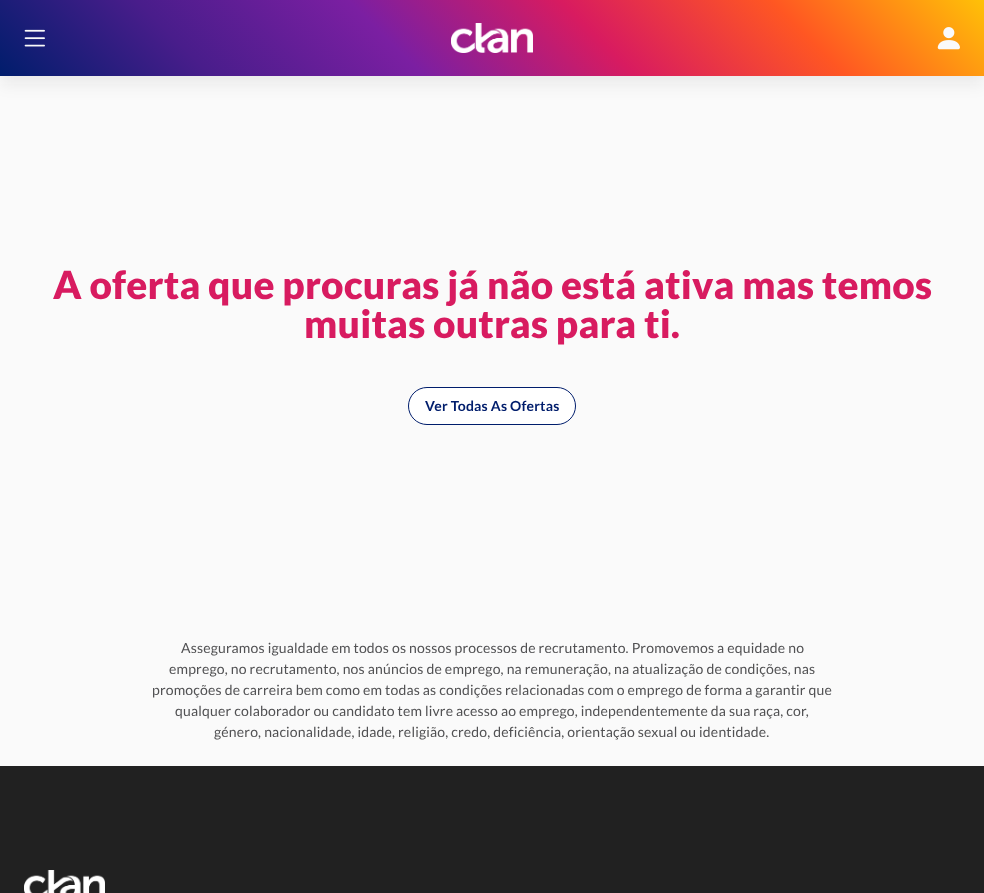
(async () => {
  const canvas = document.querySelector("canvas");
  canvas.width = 984;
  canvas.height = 893;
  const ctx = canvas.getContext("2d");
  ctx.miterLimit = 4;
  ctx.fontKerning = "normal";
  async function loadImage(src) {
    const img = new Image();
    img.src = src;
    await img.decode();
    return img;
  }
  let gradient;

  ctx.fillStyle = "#fafafa";
  ctx.fillRect(0, 0, 984, 893);
  ctx.fillStyle = "rgba(9, 9, 11, 0.07)";
  ctx.filter = "blur(8px)";
  ctx.beginPath();
  ctx.rect(0, 8, 984, 76);
  ctx.fill();
  ctx.filter = "none";
  gradient = ctx.createLinearGradient(227, 303, 757, -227);
  gradient.addColorStop(0, "#001d6c");
  gradient.addColorStop(0.2, "#491d8b");
  gradient.addColorStop(0.4, "#7b1fa2");
  gradient.addColorStop(0.6, "#d81b60");
  gradient.addColorStop(0.8, "#ff5722");
  gradient.addColorStop(1, "#ffc107");
  ctx.fillStyle = gradient;
  ctx.fillRect(0, 0, 984, 76);
  ctx.drawImage(await loadImage("img/1.png"), 24, 29, 21, 18);
  ctx.drawImage(await loadImage("img/2.png"), 451, 23, 82, 30);
  ctx.drawImage(await loadImage("img/3.png"), 937, 27, 23, 23);
  ctx.fillStyle = "#ffffff";
  ctx.beginPath();
  ctx.roundRect(408.5, 387.5, 167, 37, 18.5);
  ctx.fill();
  ctx.strokeStyle = "#001d6c";
  ctx.stroke();
  ctx.fillStyle = "#212121";
  ctx.fillRect(0, 766, 984, 127);
  ctx.drawImage(await loadImage("img/4.png"), 24, 870, 81, 23);
  ctx.letterSpacing = "0.18px";
  ctx.font = "900 38.75px Lato";
  ctx.fillStyle = "#d81b60";
  ctx.fillText("A oferta que procuras já não está ativa mas temos", 53, 299);
  ctx.fillText("muitas outras para ti.", 304, 338);
  ctx.font = "bold 14px Lato";
  ctx.fillStyle = "#001d6c";
  ctx.fillText("Ver Todas As Ofertas", 425, 411);
  ctx.font = "14px Lato";
  ctx.fillStyle = "#515153";
  for (const [text, x, y] of [
    ["Asseguramos igualdade em todos os nossos processos de recrutamento. Promovemos a equidade no", 181, 653],
    ["emprego, no recrutamento, nos anúncios de emprego, na remuneração, na atualização de condições, nas", 169, 674],
    ["promoções de carreira bem como em todas as condições relacionadas com o emprego de forma a garantir que", 152, 695],
    ["qualquer colaborador ou candidato tem livre acesso ao emprego, independentemente da sua raça, cor,", 175, 716],
    ["género, nacionalidade, idade, religião, credo, deficiência, orientação sexual ou identidade.", 214, 737],
  ]) {
    ctx.fillText(text, x, y);
  }
})();
